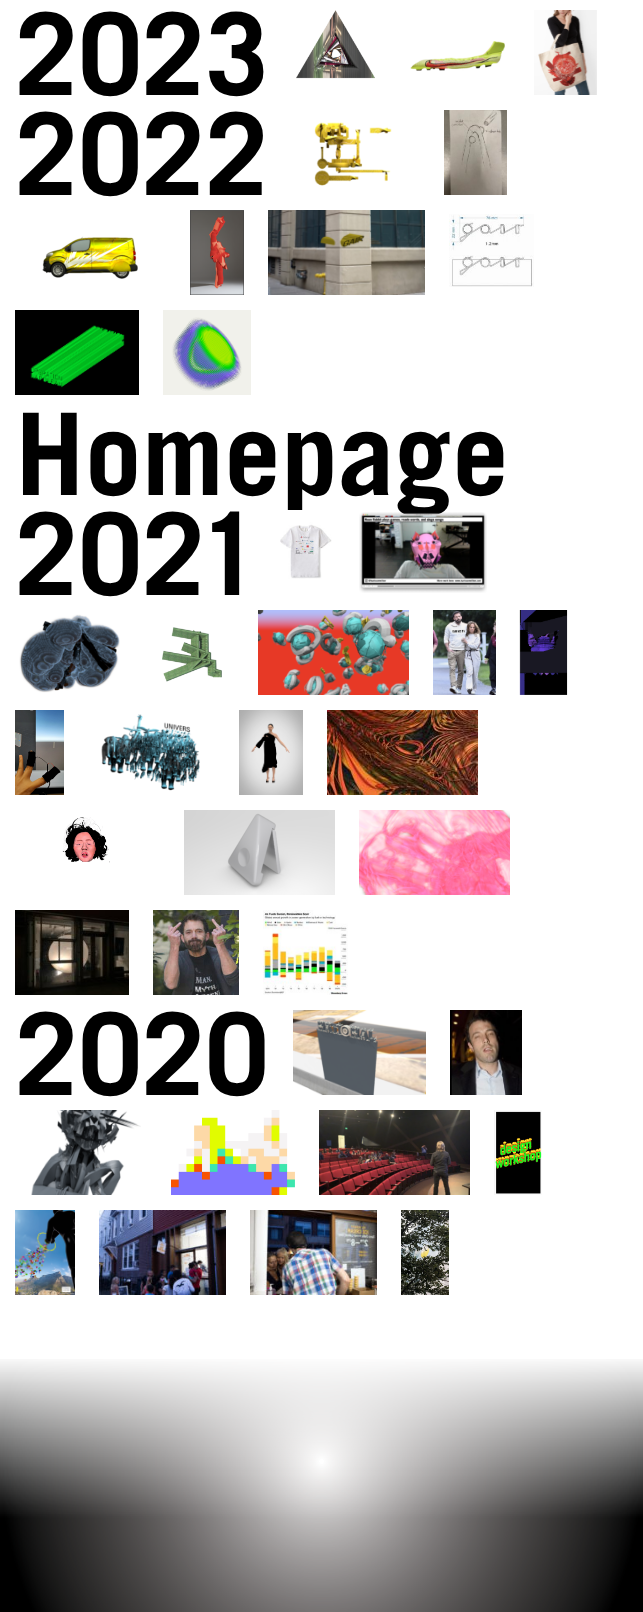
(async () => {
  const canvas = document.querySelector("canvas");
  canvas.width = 643;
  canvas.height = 1612;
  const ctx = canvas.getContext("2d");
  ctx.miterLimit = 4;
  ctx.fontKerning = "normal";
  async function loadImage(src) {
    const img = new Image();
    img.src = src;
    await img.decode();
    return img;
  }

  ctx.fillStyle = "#ffffff";
  ctx.fillRect(0, 0, 643, 1612);
  ctx.drawImage(await loadImage("img/1.png"), 296, 10, 79, 69);
  ctx.drawImage(await loadImage("img/2.png"), 410, 41, 95, 30);
  ctx.drawImage(await loadImage("img/3.png"), 534, 10, 63, 85);
  ctx.drawImage(await loadImage("img/4.png"), 314, 122, 78, 64);
  ctx.drawImage(await loadImage("img/5.png"), 444, 110, 63, 85);
  ctx.drawImage(await loadImage("img/6.png"), 42, 236, 96, 43);
  ctx.drawImage(await loadImage("img/7.png"), 190, 210, 54, 85);
  ctx.drawImage(await loadImage("img/8.png"), 268, 210, 157, 85);
  ctx.drawImage(await loadImage("img/9.png"), 449, 214, 85, 73);
  ctx.drawImage(await loadImage("img/10.png"), 15, 310, 124, 85);
  ctx.drawImage(await loadImage("img/11.png"), 163, 310, 88, 85);
  ctx.drawImage(await loadImage("img/14.png"), 19, 614, 101, 79);
  ctx.drawImage(await loadImage("img/15.png"), 162, 627, 60, 55);
  ctx.drawImage(await loadImage("img/16.png"), 258, 610, 151, 85);
  ctx.drawImage(await loadImage("img/17.png"), 433, 610, 63, 85);
  ctx.drawImage(await loadImage("img/18.png"), 519, 610, 49, 85);
  ctx.drawImage(await loadImage("img/19.png"), 15, 710, 49, 85);
  ctx.drawImage(await loadImage("img/20.png"), 101, 714, 99, 77);
  ctx.drawImage(await loadImage("img/21.png"), 239, 710, 64, 85);
  ctx.drawImage(await loadImage("img/22.png"), 327, 710, 151, 85);
  ctx.drawImage(await loadImage("img/23.png"), 62, 817, 48, 46);
  ctx.drawImage(await loadImage("img/24.png"), 184, 810, 151, 85);
  ctx.drawImage(await loadImage("img/25.png"), 359, 810, 151, 85);
  ctx.drawImage(await loadImage("img/26.png"), 15, 910, 114, 85);
  ctx.drawImage(await loadImage("img/27.png"), 153, 910, 86, 85);
  ctx.drawImage(await loadImage("img/28.png"), 263, 910, 85, 85);
  ctx.drawImage(await loadImage("img/29.png"), 293, 1010, 133, 85);
  ctx.drawImage(await loadImage("img/30.png"), 450, 1010, 72, 85);
  ctx.drawImage(await loadImage("img/31.png"), 31, 1110, 110, 85);
  ctx.drawImage(await loadImage("img/32.png"), 171, 1110, 124, 85);
  ctx.drawImage(await loadImage("img/33.png"), 319, 1110, 151, 85);
  ctx.drawImage(await loadImage("img/34.png"), 494, 1110, 48, 85);
  ctx.drawImage(await loadImage("img/35.png"), 15, 1210, 60, 85);
  ctx.drawImage(await loadImage("img/36.png"), 99, 1210, 127, 85);
  ctx.drawImage(await loadImage("img/37.png"), 250, 1210, 127, 85);
  ctx.drawImage(await loadImage("img/38.png"), 401, 1210, 48, 85);
  ctx.drawImage(await loadImage("img/39.png"), 0, 1359, 643, 253);
  ctx.font = "bold 114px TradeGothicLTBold";
  ctx.fillStyle = "#000000";
  for (const [text, x, y] of [
    ["2023", 15, 95],
    ["2022", 15, 195],
    ["Homepage", 15, 495],
    ["20", 15, 595],
  ]) {
    ctx.fillText(text, x, y);
  }
  ctx.letterSpacing = "-7px";
  ctx.fillText("2", 142, 595);
  ctx.letterSpacing = "-9px";
  ctx.fillText("1", 198, 595);
  ctx.drawImage(await loadImage("img/12.png"), 280, 510, 52, 69);
  ctx.drawImage(await loadImage("img/13.png"), 359, 512, 128, 81);
  ctx.letterSpacing = "0px";
  ctx.fillText("2020", 15, 1095);
})();
